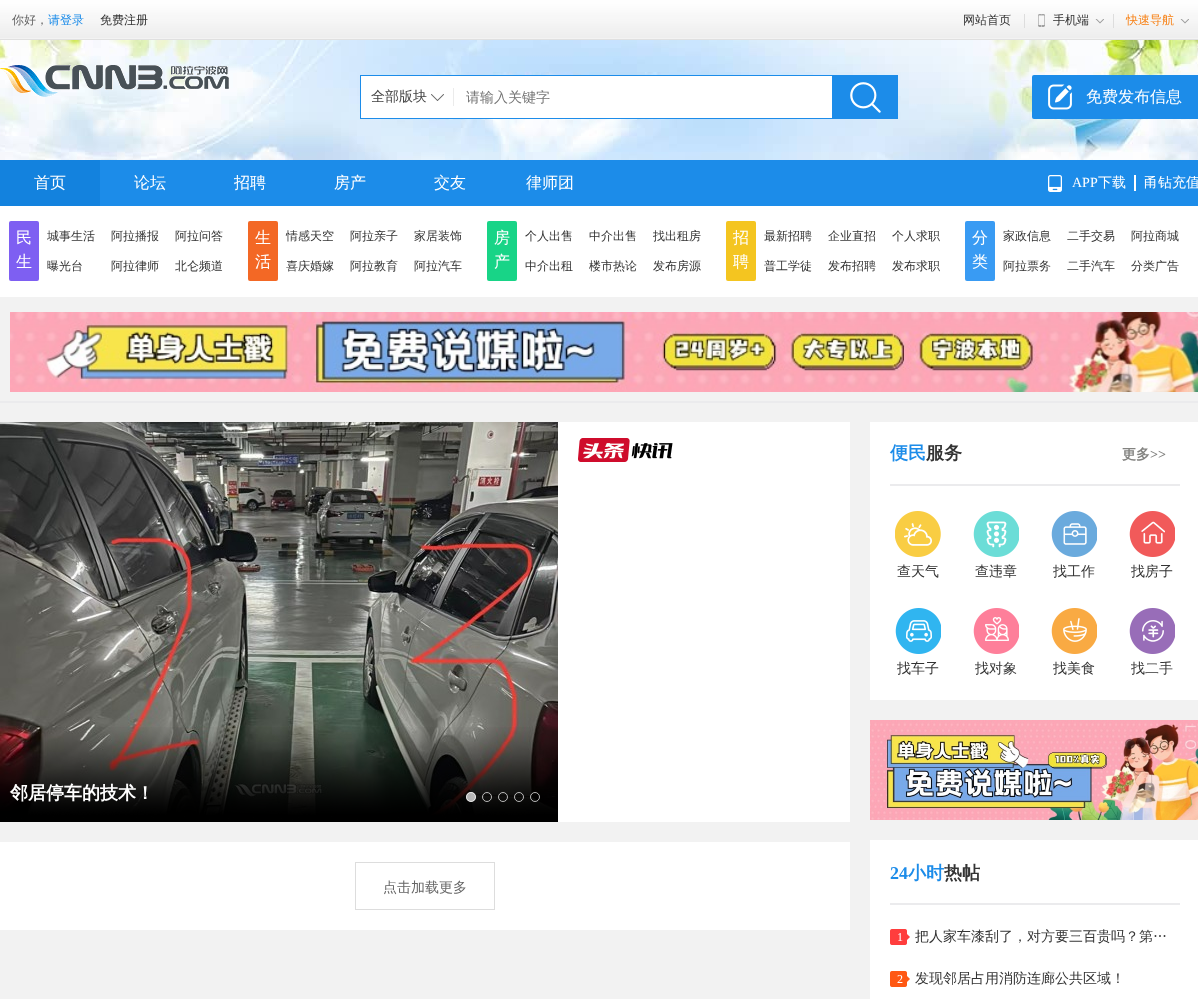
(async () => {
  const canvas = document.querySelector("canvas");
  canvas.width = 1198;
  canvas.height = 999;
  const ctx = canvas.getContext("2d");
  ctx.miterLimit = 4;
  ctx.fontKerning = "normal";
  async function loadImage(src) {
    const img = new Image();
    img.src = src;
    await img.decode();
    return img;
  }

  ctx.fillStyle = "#f2f2f2";
  ctx.fillRect(0, 0, 1198, 999);
  ctx.drawImage(await loadImage("img/1.png"), 0, 0, 1198, 40);
  ctx.fillStyle = "#dddddd";
  ctx.fillRect(1024, 14, 1, 14);
  ctx.drawImage(await loadImage("img/2.png"), 1038, 14, 7, 13);
  ctx.drawImage(await loadImage("img/3.png"), 1095, 19, 9, 5);
  ctx.fillRect(1113, 14, 1, 14);
  ctx.drawImage(await loadImage("img/3.png"), 1180, 19, 9, 5);
  ctx.drawImage(await loadImage("img/4.png"), 0, 40, 1198, 120);
  ctx.drawImage(await loadImage("img/5.png"), 0, 65, 229, 32);
  ctx.fillStyle = "#ffffff";
  ctx.fillRect(361, 76, 471, 42);
  ctx.strokeStyle = "#1c8ce9";
  ctx.strokeRect(360.5, 75.5, 537, 43);
  ctx.fillStyle = "#ebebeb";
  ctx.fillRect(453, 88, 1, 18);
  ctx.drawImage(await loadImage("img/6.png"), 431, 94, 13, 7);
  ctx.fillStyle = "#1c8ce9";
  ctx.beginPath();
  ctx.roundRect(832, 75, 66, 44, [0, 2, 2, 0]);
  ctx.fill();
  ctx.drawImage(await loadImage("img/7.png"), 850, 82, 31, 31);
  ctx.beginPath();
  ctx.roundRect(1032, 75, 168, 44, 2);
  ctx.fill();
  ctx.drawImage(await loadImage("img/8.png"), 1048, 84, 24, 26);
  ctx.fillRect(100, 160, 1098, 46);
  ctx.fillStyle = "#1382de";
  ctx.fillRect(0, 160, 100, 46);
  ctx.drawImage(await loadImage("img/9.png"), 1048, 175, 14, 17);
  ctx.fillStyle = "#ffffff";
  ctx.fillRect(1134, 175, 2, 16);
  ctx.fillRect(0, 206, 1198, 91);
  ctx.fillStyle = "#7e5ff2";
  ctx.beginPath();
  ctx.roundRect(9, 221, 30, 60, 2);
  ctx.fill();
  ctx.fillStyle = "#f36825";
  ctx.beginPath();
  ctx.roundRect(248, 221, 30, 60, 2);
  ctx.fill();
  ctx.fillStyle = "#18d487";
  ctx.beginPath();
  ctx.roundRect(487, 221, 30, 60, 2);
  ctx.fill();
  ctx.fillStyle = "#f4c520";
  ctx.beginPath();
  ctx.roundRect(726, 221, 30, 60, 2);
  ctx.fill();
  ctx.fillStyle = "#399bf3";
  ctx.beginPath();
  ctx.roundRect(965, 221, 30, 60, 2);
  ctx.fill();
  ctx.drawImage(await loadImage("img/10.png"), 10, 312, 1188, 80);
  ctx.fillStyle = "#ebebed";
  ctx.fillRect(0, 401, 1198, 2);
  ctx.fillStyle = "#ffffff";
  ctx.fillRect(558, 422, 292, 400);
  ctx.drawImage(await loadImage("img/11.png"), 578, 438, 95, 24);
  ctx.drawImage(await loadImage("img/12.png"), 0, 422, 558, 393);
  ctx.drawImage(await loadImage("img/13.png"), 0, 727, 558, 95);
  ctx.fillStyle = "rgba(255, 255, 255, 0.7)";
  ctx.beginPath();
  ctx.arc(471, 797, 5, 0, Math.PI * 2);
  ctx.fill();
  ctx.beginPath();
  ctx.arc(471, 797, 4.5, 0, Math.PI * 2);
  ctx.strokeStyle = "rgba(255, 255, 255, 0.7)";
  ctx.stroke();
  ctx.beginPath();
  ctx.arc(487, 797, 4.5, 0, Math.PI * 2);
  ctx.stroke();
  ctx.beginPath();
  ctx.arc(503, 797, 4.5, 0, Math.PI * 2);
  ctx.stroke();
  ctx.beginPath();
  ctx.arc(519, 797, 4.5, 0, Math.PI * 2);
  ctx.stroke();
  ctx.beginPath();
  ctx.arc(535, 797, 4.5, 0, Math.PI * 2);
  ctx.stroke();
  ctx.fillStyle = "#ffffff";
  ctx.fillRect(0, 842, 850, 88);
  ctx.strokeStyle = "#dddddd";
  ctx.strokeRect(355.5, 862.5, 139, 47);
  ctx.fillRect(870, 422, 328, 278);
  ctx.fillStyle = "#ebebed";
  ctx.fillRect(890, 484, 290, 2);
  ctx.drawImage(await loadImage("img/14.png"), 895, 511, 46, 46);
  ctx.drawImage(await loadImage("img/15.png"), 973, 511, 46, 46);
  ctx.drawImage(await loadImage("img/16.png"), 1051, 511, 46, 46);
  ctx.drawImage(await loadImage("img/17.png"), 1129, 511, 46, 46);
  ctx.drawImage(await loadImage("img/18.png"), 895, 608, 46, 46);
  ctx.drawImage(await loadImage("img/19.png"), 973, 608, 46, 46);
  ctx.drawImage(await loadImage("img/20.png"), 1051, 608, 46, 46);
  ctx.drawImage(await loadImage("img/21.png"), 1129, 608, 46, 46);
  ctx.drawImage(await loadImage("img/22.png"), 870, 720, 328, 100);
  ctx.fillStyle = "#ffffff";
  ctx.fillRect(870, 840, 328, 159);
  ctx.fillStyle = "#ebebed";
  ctx.fillRect(890, 903, 290, 2);
  ctx.drawImage(await loadImage("img/23.png"), 890, 929, 20, 16);
  ctx.drawImage(await loadImage("img/24.png"), 890, 971, 20, 16);
  ctx.font = "500 12px WenQuanYi Zen Hei";
  ctx.fillStyle = "#666666";
  ctx.fillText("你好，", 12, 24);
  ctx.fillStyle = "#1c8ce9";
  ctx.fillText("请登录", 48, 24);
  ctx.fillStyle = "#333333";
  for (const [text, x, y] of [
    ["免费注册", 100, 24],
    ["网站首页", 963, 24],
    ["手机端", 1053, 24],
  ]) {
    ctx.fillText(text, x, y);
  }
  ctx.fillStyle = "#f78115";
  ctx.fillText("快速导航", 1126, 24);
  ctx.font = "500 14px WenQuanYi Zen Hei";
  ctx.fillStyle = "#444444";
  ctx.fillText("全部版块", 371, 101);
  ctx.fillStyle = "#757575";
  ctx.fillText("请输入关键字", 466, 102);
  ctx.font = "500 16px WenQuanYi Zen Hei";
  ctx.fillStyle = "#ffffff";
  for (const [text, x, y] of [
    ["免费发布信息", 1086, 102],
    ["首页", 34, 188],
    ["论坛", 134, 188],
    ["招聘", 234, 188],
    ["房产", 334, 188],
    ["交友", 434, 188],
    ["律师团", 526, 188],
  ]) {
    ctx.fillText(text, x, y);
  }
  ctx.font = "14px Liberation Serif";
  ctx.fillText("APP", 1072, 187);
  ctx.font = "500 14px WenQuanYi Zen Hei";
  ctx.fillText("下载", 1098, 187);
  ctx.fillText("甬钻充值", 1144, 187);
  ctx.font = "500 16px WenQuanYi Zen Hei";
  ctx.fillText("民", 16, 243);
  ctx.fillText("生", 16, 267);
  ctx.font = "500 12px WenQuanYi Zen Hei";
  ctx.fillStyle = "#333333";
  for (const [text, x, y] of [
    ["城事生活", 47, 240],
    ["阿拉播报", 111, 240],
    ["阿拉问答", 175, 240],
    ["曝光台", 47, 270],
    ["阿拉律师", 111, 270],
    ["北仑频道", 175, 270],
  ]) {
    ctx.fillText(text, x, y);
  }
  ctx.font = "500 16px WenQuanYi Zen Hei";
  ctx.fillStyle = "#ffffff";
  ctx.fillText("生", 255, 243);
  ctx.fillText("活", 255, 267);
  ctx.font = "500 12px WenQuanYi Zen Hei";
  ctx.fillStyle = "#333333";
  for (const [text, x, y] of [
    ["情感天空", 286, 240],
    ["阿拉亲子", 350, 240],
    ["家居装饰", 414, 240],
    ["喜庆婚嫁", 286, 270],
    ["阿拉教育", 350, 270],
    ["阿拉汽车", 414, 270],
  ]) {
    ctx.fillText(text, x, y);
  }
  ctx.font = "500 16px WenQuanYi Zen Hei";
  ctx.fillStyle = "#ffffff";
  ctx.fillText("房", 494, 243);
  ctx.fillText("产", 494, 267);
  ctx.font = "500 12px WenQuanYi Zen Hei";
  ctx.fillStyle = "#333333";
  for (const [text, x, y] of [
    ["个人出售", 525, 240],
    ["中介出售", 589, 240],
    ["找出租房", 653, 240],
    ["中介出租", 525, 270],
    ["楼市热论", 589, 270],
    ["发布房源", 653, 270],
  ]) {
    ctx.fillText(text, x, y);
  }
  ctx.font = "500 16px WenQuanYi Zen Hei";
  ctx.fillStyle = "#ffffff";
  ctx.fillText("招", 733, 243);
  ctx.fillText("聘", 733, 267);
  ctx.font = "500 12px WenQuanYi Zen Hei";
  ctx.fillStyle = "#333333";
  for (const [text, x, y] of [
    ["最新招聘", 764, 240],
    ["企业直招", 828, 240],
    ["个人求职", 892, 240],
    ["普工学徒", 764, 270],
    ["发布招聘", 828, 270],
    ["发布求职", 892, 270],
  ]) {
    ctx.fillText(text, x, y);
  }
  ctx.font = "500 16px WenQuanYi Zen Hei";
  ctx.fillStyle = "#ffffff";
  ctx.fillText("分", 972, 243);
  ctx.fillText("类", 972, 267);
  ctx.font = "500 12px WenQuanYi Zen Hei";
  ctx.fillStyle = "#333333";
  for (const [text, x, y] of [
    ["家政信息", 1003, 240],
    ["二手交易", 1067, 240],
    ["阿拉商城", 1131, 240],
    ["阿拉票务", 1003, 270],
    ["二手汽车", 1067, 270],
    ["分类广告", 1131, 270],
  ]) {
    ctx.fillText(text, x, y);
  }
  ctx.font = "bold 18px WenQuanYi Zen Hei";
  ctx.fillStyle = "#ffffff";
  ctx.fillText("邻居停车的技术！", 10, 799);
  ctx.font = "500 14px WenQuanYi Zen Hei";
  ctx.fillStyle = "#666666";
  ctx.fillText("点击加载更多", 383, 892);
  ctx.font = "bold 18px WenQuanYi Zen Hei";
  ctx.fillStyle = "#1c8ce9";
  ctx.fillText("便民", 890, 459);
  ctx.fillStyle = "#333333";
  ctx.fillText("服务", 926, 459);
  ctx.font = "bold 14px WenQuanYi Zen Hei";
  ctx.fillStyle = "#838380";
  ctx.fillText("更多", 1122, 459);
  ctx.font = "bold 14px Liberation Serif";
  ctx.fillText(">>", 1150, 459);
  ctx.font = "500 14px WenQuanYi Zen Hei";
  ctx.fillStyle = "#333333";
  for (const [text, x, y] of [
    ["查天气", 897, 576],
    ["查违章", 975, 576],
    ["找工作", 1053, 576],
    ["找房子", 1131, 576],
    ["找车子", 897, 673],
    ["找对象", 975, 673],
    ["找美食", 1053, 673],
    ["找二手", 1131, 673],
  ]) {
    ctx.fillText(text, x, y);
  }
  ctx.font = "bold 18px Liberation Serif";
  ctx.fillStyle = "#1c8ce9";
  ctx.fillText("24", 890, 879);
  ctx.font = "bold 18px WenQuanYi Zen Hei";
  ctx.fillText("小时", 908, 879);
  ctx.fillStyle = "#333333";
  ctx.fillText("热帖", 944, 879);
  ctx.font = "12px Liberation Serif";
  ctx.fillStyle = "#ffffff";
  ctx.fillText("1", 897, 941);
  ctx.font = "500 14px WenQuanYi Zen Hei";
  ctx.fillStyle = "#333333";
  ctx.fillText("把人家车漆刮了，对方要三百贵吗？第…", 915, 941);
  ctx.font = "12px Liberation Serif";
  ctx.fillStyle = "#ffffff";
  ctx.fillText("2", 897, 983);
  ctx.font = "500 14px WenQuanYi Zen Hei";
  ctx.fillStyle = "#333333";
  ctx.fillText("发现邻居占用消防连廊公共区域！", 915, 983);
})();
